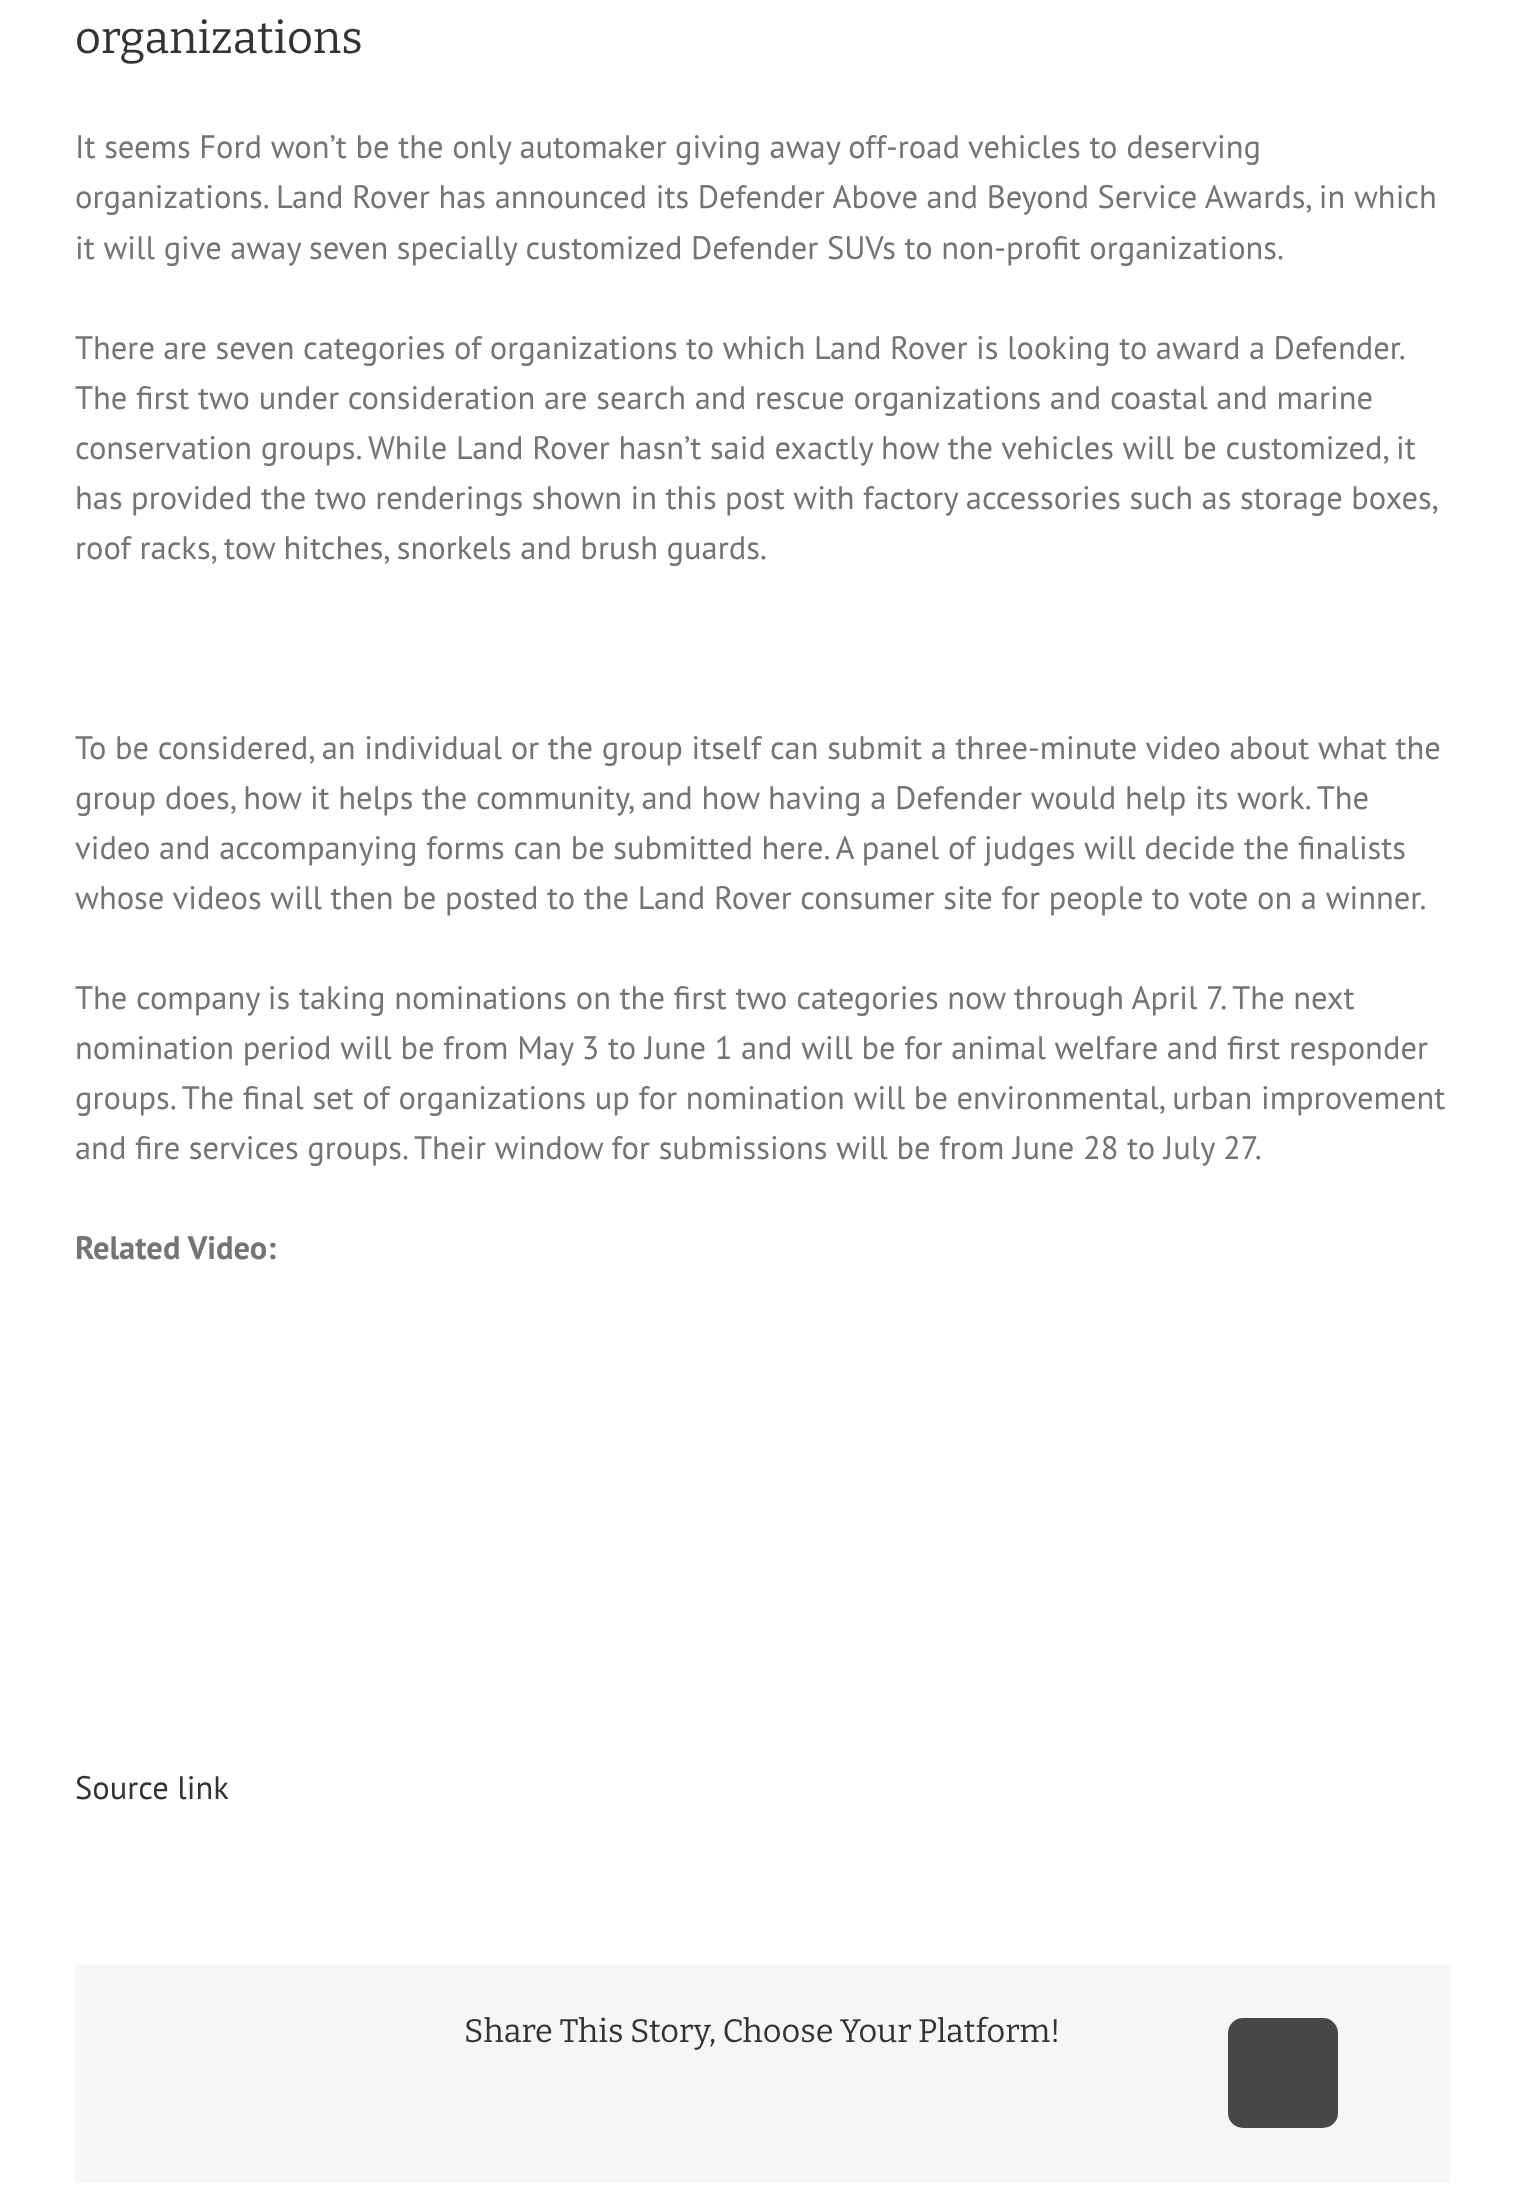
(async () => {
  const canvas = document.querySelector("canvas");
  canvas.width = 1525;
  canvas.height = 2201;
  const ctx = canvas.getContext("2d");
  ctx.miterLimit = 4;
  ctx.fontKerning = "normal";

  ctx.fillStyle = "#ffffff";
  ctx.fillRect(0, 0, 1525, 2201);
  ctx.fillStyle = "#f6f6f6";
  ctx.fillRect(75, 1965, 1375, 218);
  ctx.fillStyle = "#474747";
  ctx.beginPath();
  ctx.roundRect(1228, 2018, 110, 110, 15);
  ctx.fill();
  ctx.font = "100 45px Bitter";
  ctx.fillStyle = "#333333";
  ctx.fillText("organizations", 75, 53);
  ctx.font = "32.5px PT Sans";
  ctx.fillStyle = "#747474";
  for (const [text, x, y] of [
    ["It seems Ford won’t be the only automaker giving away off-road vehicles to deserving", 75, 158],
    ["organizations. Land Rover has announced its Defender Above and Beyond Service Awards, in which", 75, 208],
    ["it will give away seven specially customized Defender SUVs to non-profit organizations.", 75, 259],
  ]) {
    ctx.fillText(text, x, y);
  }
  ctx.wordSpacing = "-0.2px";
  ctx.fillText("There are seven categories of organizations to which Land Rover is looking to award a Defender.", 75, 359);
  ctx.wordSpacing = "0px";
  ctx.fillText("The first two under consideration are search and rescue organizations and coastal and marine", 75, 409);
  ctx.fillText("conservation groups. While Land Rover hasn’t said exactly how the vehicles will be customized, it", 75, 459);
  ctx.wordSpacing = "-0.2px";
  ctx.fillText("has provided the two renderings shown in this post with factory accessories such as storage boxes,", 75, 509);
  ctx.wordSpacing = "0px";
  for (const [text, x, y] of [
    ["roof racks, tow hitches, snorkels and brush guards.", 75, 559],
    ["To be considered, an individual or the group itself can submit a three-minute video about what the", 75, 759],
    ["group does, how it helps the community, and how having a Defender would help its work. The", 75, 809],
    ["video and accompanying forms can be submitted here. A panel of judges will decide the finalists", 75, 859],
    ["whose videos will then be posted to the Land Rover consumer site for people to vote on a winner.", 75, 909],
    ["The company is taking nominations on the first two categories now through April 7. The next", 75, 1009],
    ["nomination period will be from May 3 to June 1 and will be for animal welfare and first responder", 75, 1059],
    ["groups. The final set of organizations up for nomination will be environmental, urban improvement", 75, 1109],
    ["and fire services groups. Their window for submissions will be from June 28 to July 27.", 75, 1159],
  ]) {
    ctx.fillText(text, x, y);
  }
  ctx.font = "bold 32.5px PT Sans";
  ctx.fillText("Related Video:", 75, 1259);
  ctx.font = "32.5px PT Sans";
  ctx.fillStyle = "#333333";
  ctx.fillText("Source link", 75, 1799);
  ctx.font = "100 32.5px Bitter";
  ctx.fillText("Share This Story, Choose Your Platform!", 464, 2042);
})();
